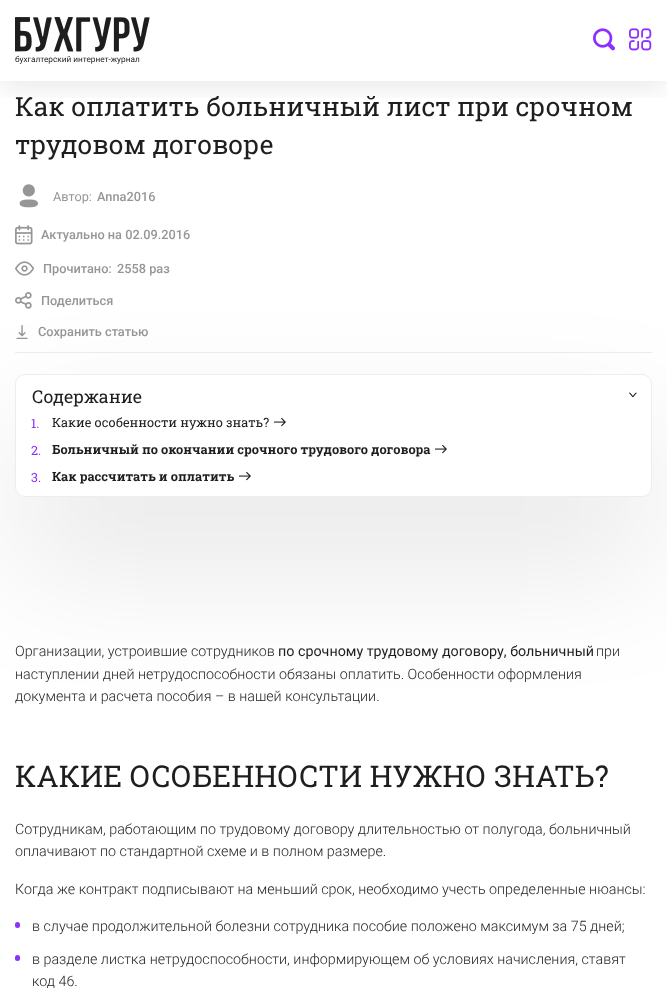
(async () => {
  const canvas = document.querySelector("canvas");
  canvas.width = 667;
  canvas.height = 988;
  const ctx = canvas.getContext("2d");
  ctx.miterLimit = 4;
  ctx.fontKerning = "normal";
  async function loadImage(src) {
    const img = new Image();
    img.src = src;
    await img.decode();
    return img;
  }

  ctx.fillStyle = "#ffffff";
  ctx.fillRect(0, 0, 667, 988);
  ctx.save();
  ctx.beginPath();
  ctx.rect(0, 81, 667, 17);
  ctx.clip();
  ctx.fillStyle = "rgba(0, 0, 0, 0.1)";
  ctx.filter = "blur(15px)";
  ctx.beginPath();
  ctx.rect(0, 4, 667, 81);
  ctx.fill();
  ctx.filter = "none";
  ctx.restore();
  ctx.drawImage(await loadImage("img/1.png"), 593, 28, 22, 23);
  ctx.drawImage(await loadImage("img/2.png"), 629, 28, 23, 23);
  ctx.drawImage(await loadImage("img/3.png"), 15, 17, 135, 35);
  ctx.fillStyle = "#ededed";
  ctx.fillRect(15, 352, 637, 1);
  ctx.drawImage(await loadImage("img/4.png"), 19, 184, 19, 24);
  ctx.drawImage(await loadImage("img/5.png"), 15, 225, 18, 20);
  ctx.drawImage(await loadImage("img/6.png"), 15, 261, 19, 15);
  ctx.drawImage(await loadImage("img/7.png"), 15, 292, 17, 17);
  ctx.drawImage(await loadImage("img/8.png"), 16, 325, 12, 14);
  ctx.fillStyle = "rgba(0, 0, 0, 0.1)";
  ctx.filter = "blur(67px)";
  ctx.beginPath();
  ctx.roundRect(15, 438, 637, 123, 10);
  ctx.fill();
  ctx.filter = "none";
  ctx.fillStyle = "#ffffff";
  ctx.beginPath();
  ctx.roundRect(15.5, 374.5, 636, 122, 9.5);
  ctx.fill();
  ctx.strokeStyle = "#ededed";
  ctx.stroke();
  ctx.drawImage(await loadImage("img/9.png"), 629, 392, 8, 6);
  ctx.drawImage(await loadImage("img/10.png"), 274, 418, 12, 9);
  ctx.drawImage(await loadImage("img/10.png"), 435, 445, 12, 9);
  ctx.drawImage(await loadImage("img/10.png"), 239, 472, 12, 9);
  ctx.fillStyle = "#8d30ff";
  ctx.beginPath();
  ctx.roundRect(15, 922, 5, 6, 2.5);
  ctx.fill();
  ctx.beginPath();
  ctx.roundRect(15, 955, 5, 6, 2.5);
  ctx.fill();
  ctx.font = "8.25px Roboto";
  ctx.fillStyle = "#1e1e1e";
  ctx.fillText("бухгалтерский интернет-журнал", 15, 62);
  ctx.font = "26.4px Roboto Slab";
  ctx.fillText("Как оплатить больничный лист при срочном", 15, 116);
  ctx.fillText("трудовом договоре", 15, 154);
  ctx.font = "12.75px Roboto";
  ctx.fillStyle = "#969696";
  ctx.fillText("Автор:", 53, 201);
  ctx.font = "500 12.75px Roboto";
  for (const [text, x, y] of [
    ["Anna2016", 97, 201],
    ["Актуально на 02.09.2016", 41, 239],
    ["Прочитано:", 43, 273],
    ["2558 раз", 117, 273],
    ["Поделиться", 41, 305],
    ["Сохранить статью", 38, 336],
  ]) {
    ctx.fillText(text, x, y);
  }
  ctx.font = "17.75px Roboto Slab";
  ctx.fillStyle = "#1e1e1e";
  ctx.fillText("Содержание", 32, 403);
  ctx.font = "12.75px Roboto Slab";
  ctx.fillStyle = "#8d30ff";
  ctx.fillText("1.", 31, 428);
  ctx.fillStyle = "#1e1e1e";
  ctx.fillText("Какие особенности нужно знать?", 52, 427);
  ctx.fillStyle = "#8d30ff";
  ctx.fillText("2.", 31, 455);
  ctx.font = "bold 12.75px Roboto Slab";
  ctx.fillStyle = "#1e1e1e";
  ctx.fillText("Больничный по окончании срочного трудового договора", 52, 454);
  ctx.font = "12.75px Roboto Slab";
  ctx.fillStyle = "#8d30ff";
  ctx.fillText("3.", 31, 482);
  ctx.font = "bold 12.75px Roboto Slab";
  ctx.fillStyle = "#1e1e1e";
  ctx.fillText("Как рассчитать и оплатить", 52, 481);
  ctx.font = "300 14.3px Roboto";
  ctx.fillText("Организации, устроившие сотрудников", 15, 656);
  ctx.font = "14.3px Roboto";
  ctx.fillText("по срочному трудовому договору, больничный", 278, 656);
  ctx.font = "300 14.3px Roboto";
  for (const [text, x, y] of [
    ["при", 596, 656],
    ["наступлении дней нетрудоспособности обязаны оплатить. Особенности оформления", 15, 679],
    ["документа и расчета пособия – в нашей консультации.", 15, 701],
  ]) {
    ctx.fillText(text, x, y);
  }
  ctx.font = "30px Roboto Slab";
  ctx.fillText("КАКИЕ ОСОБЕННОСТИ НУЖНО ЗНАТЬ?", 15, 787);
  ctx.font = "300 14.3px Roboto";
  for (const [text, x, y] of [
    ["Сотрудникам, работающим по трудовому договору длительностью от полугода, больничный", 15, 834],
    ["оплачивают по стандартной схеме и в полном размере.", 15, 856],
    ["Когда же контракт подписывают на меньший срок, необходимо учесть определенные нюансы:", 15, 894],
    ["в случае продолжительной болезни сотрудника пособие положено максимум за 75 дней;", 32, 931],
    ["в разделе листка нетрудоспособности, информирующем об условиях начисления, ставят", 32, 964],
    ["код 46.", 32, 986],
  ]) {
    ctx.fillText(text, x, y);
  }
})();
